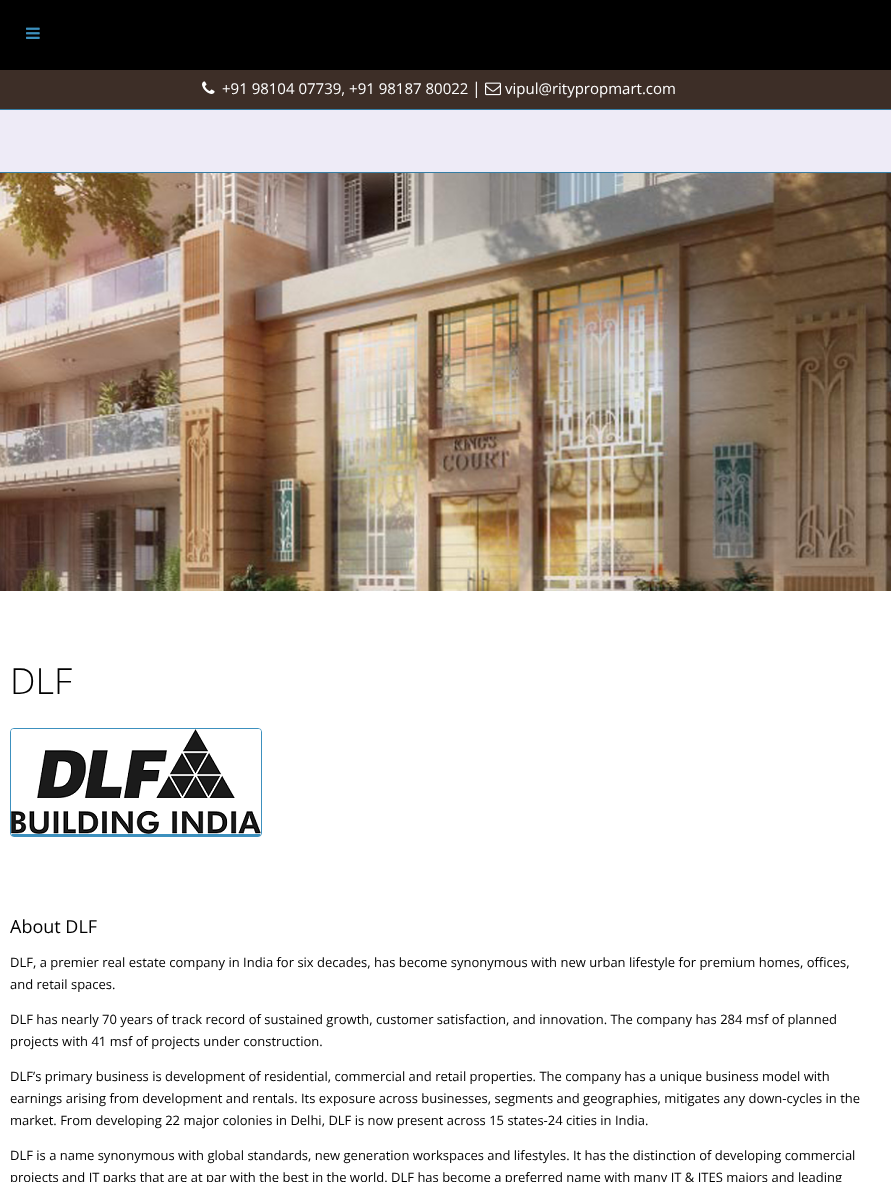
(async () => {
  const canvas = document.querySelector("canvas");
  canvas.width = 891;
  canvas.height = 1182;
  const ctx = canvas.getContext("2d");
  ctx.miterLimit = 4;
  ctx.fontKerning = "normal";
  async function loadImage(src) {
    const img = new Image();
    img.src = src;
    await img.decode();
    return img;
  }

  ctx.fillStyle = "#eeebf7";
  ctx.fillRect(0, 0, 891, 1182);
  ctx.fillStyle = "#000000";
  ctx.fillRect(0, 0, 891, 70);
  ctx.drawImage(await loadImage("img/1.png"), 26, 27, 14, 12);
  for (const [x, y, w, h, color] of [
    [0, 172, 891, 1, "#347da4"],
    [0, 70, 891, 39, "#3d2e27"],
    [0, 109, 891, 1, "#347da4"],
  ]) {
    ctx.fillStyle = color;
    ctx.fillRect(x, y, w, h);
  }
  ctx.drawImage(await loadImage("img/2.png"), 202, 81, 13, 13);
  ctx.drawImage(await loadImage("img/3.png"), 485, 82, 16, 14);
  ctx.drawImage(await loadImage("img/4.png"), 0, 173, 891, 418);
  ctx.fillStyle = "rgba(0, 0, 0, 0.15)";
  ctx.fillRect(0, 173, 2, 5);
  ctx.fillStyle = "#ffffff";
  ctx.fillRect(0, 591, 891, 591);
  ctx.beginPath();
  ctx.roundRect(10.5, 728.5, 251, 108, 3.5);
  ctx.strokeStyle = "#3c90be";
  ctx.stroke();
  ctx.fillStyle = "#3c90be";
  ctx.fillRect(12, 834, 248, 2);
  ctx.drawImage(await loadImage("img/5.png"), 11, 729, 250, 105);
  ctx.font = "15px Open Sans";
  ctx.fillStyle = "#ffffff";
  ctx.fillText("+91 98104 07739, +91 98187 80022", 222, 94);
  ctx.font = "16px Open Sans";
  ctx.fillText("|", 472, 94);
  ctx.font = "15px Open Sans";
  ctx.fillText("vipul@ritypropmart.com", 505, 94);
  ctx.font = "300 36px Open Sans";
  ctx.fillStyle = "#000000";
  ctx.fillText("DLF", 10, 694);
  ctx.font = "18px Open Sans";
  ctx.fillText("About DLF", 10, 933);
  ctx.font = "13px Open Sans";
  for (const [text, x, y] of [
    ["DLF, a premier real estate company in India for six decades, has become synonymous with new urban lifestyle for premium homes, offices,", 10, 967],
    ["and retail spaces.", 10, 989],
    ["DLF has nearly 70 years of track record of sustained growth, customer satisfaction, and innovation. The company has 284 msf of planned", 10, 1024],
    ["projects with 41 msf of projects under construction.", 10, 1046],
    ["DLF’s primary business is development of residential, commercial and retail properties. The company has a unique business model with", 10, 1081],
    ["earnings arising from development and rentals. Its exposure across businesses, segments and geographies, mitigates any down-cycles in the", 10, 1103],
    ["market. From developing 22 major colonies in Delhi, DLF is now present across 15 states-24 cities in India.", 10, 1125],
    ["DLF is a name synonymous with global standards, new generation workspaces and lifestyles. It has the distinction of developing commercial", 10, 1160],
    ["projects and IT parks that are at par with the best in the world. DLF has become a preferred name with many IT & ITES majors and leading", 10, 1182],
  ]) {
    ctx.fillText(text, x, y);
  }
})();
